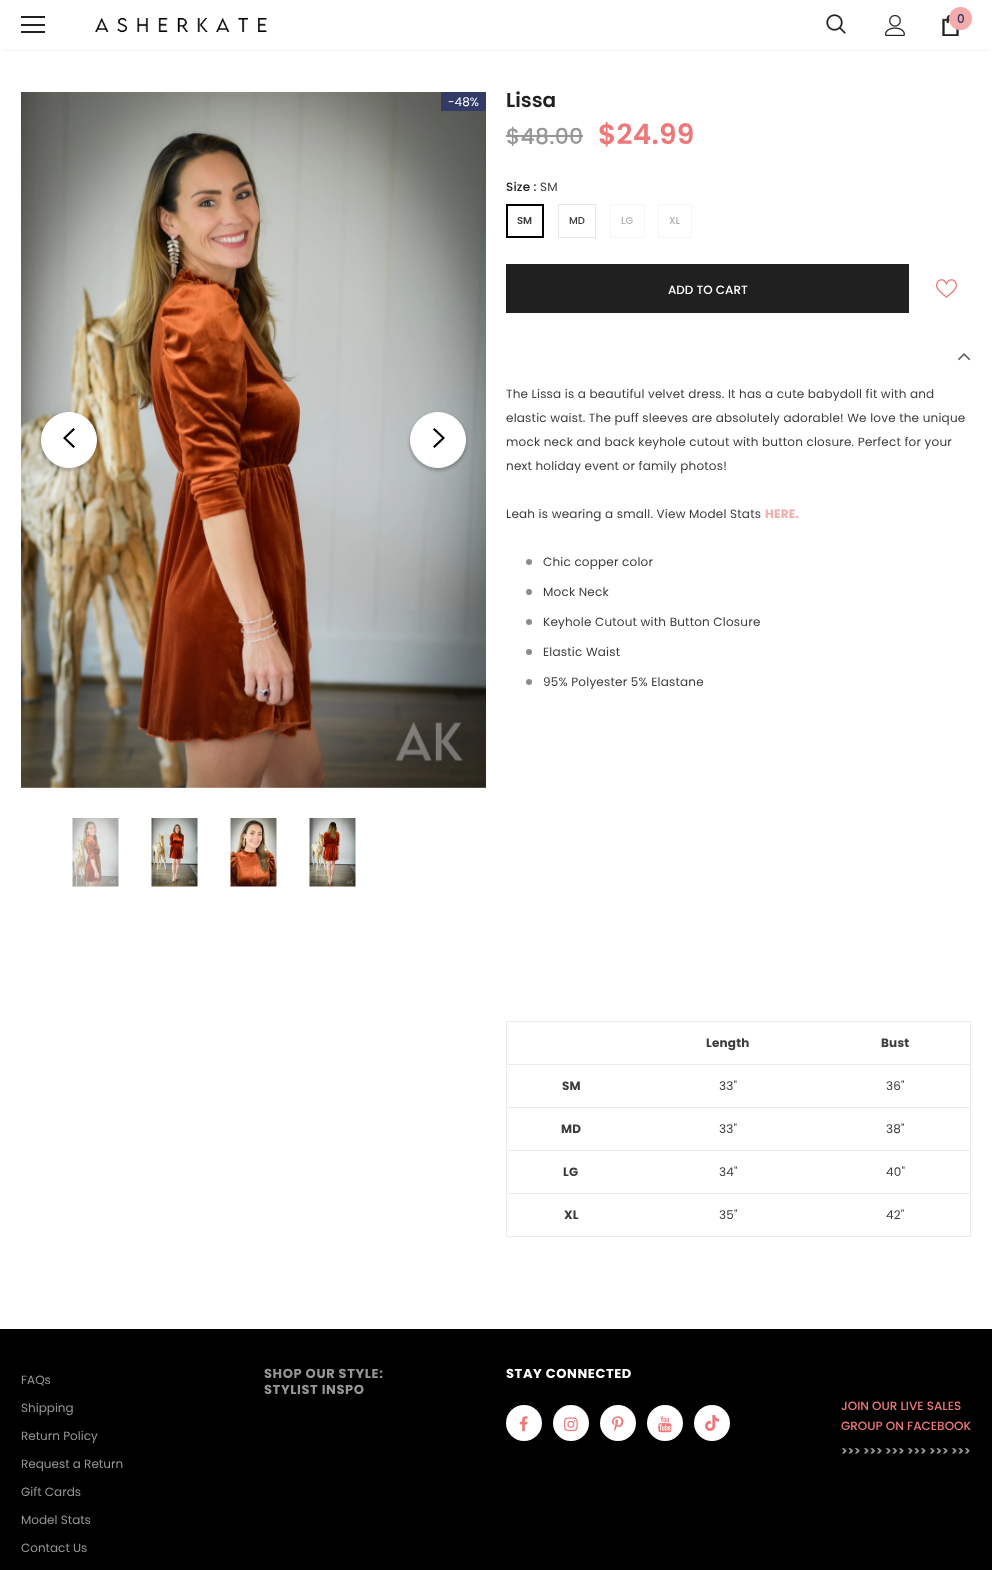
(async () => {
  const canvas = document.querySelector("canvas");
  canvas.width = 992;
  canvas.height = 1570;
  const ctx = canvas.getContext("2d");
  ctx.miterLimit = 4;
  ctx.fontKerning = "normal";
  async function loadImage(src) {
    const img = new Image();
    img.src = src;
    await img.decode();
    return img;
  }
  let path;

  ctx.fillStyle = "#ffffff";
  ctx.fillRect(0, 0, 992, 1570);
  ctx.save();
  ctx.beginPath();
  ctx.rect(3, 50, 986, 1);
  ctx.clip();
  ctx.fillStyle = "rgba(0, 0, 0, 0.12)";
  ctx.filter = "blur(1.5px)";
  ctx.beginPath();
  ctx.rect(3, 6, 986, 44);
  ctx.fill();
  ctx.filter = "none";
  ctx.restore();
  for (const [x, y, w, h, color] of [
    [21, 16, 24, 2, "#202020"],
    [21, 24, 24, 2, "#202020"],
    [21, 31, 24, 2, "#202020"],
  ]) {
    ctx.fillStyle = color;
    ctx.fillRect(x, y, w, h);
  }
  ctx.drawImage(await loadImage("img/1.png"), 95, 17, 172, 16);
  ctx.drawImage(await loadImage("img/2.png"), 826, 14, 20, 20);
  ctx.drawImage(await loadImage("img/3.png"), 885, 15, 20, 21);
  ctx.drawImage(await loadImage("img/4.png"), 942, 15, 17, 21);
  ctx.fillStyle = "#f4abaa";
  ctx.beginPath();
  ctx.arc(960.5, 18.5, 11.5, 0, Math.PI * 2);
  ctx.fill();
  ctx.drawImage(await loadImage("img/5.png"), 21, 92, 465, 696);
  ctx.fillStyle = "rgba(0, 0, 0, 0.2)";
  ctx.filter = "blur(1.5px)";
  ctx.beginPath();
  ctx.roundRect(40, 413, 58, 58, 29);
  ctx.fill();
  ctx.filter = "none";
  ctx.fillStyle = "#ffffff";
  ctx.beginPath();
  ctx.arc(69, 440, 27.5, 0, Math.PI * 2);
  ctx.fill();
  ctx.strokeStyle = "#ffffff";
  ctx.stroke();
  ctx.fillStyle = "#000000";
  path = new Path2D("M75 429.5L73.5 428L63 438L73.5 448L75 446.5L66 438Z");
  ctx.fill(path);
  ctx.fillStyle = "rgba(0, 0, 0, 0.2)";
  ctx.filter = "blur(1.5px)";
  ctx.beginPath();
  ctx.roundRect(409, 413, 58, 58, 29);
  ctx.fill();
  ctx.filter = "none";
  ctx.fillStyle = "#ffffff";
  ctx.beginPath();
  ctx.arc(438, 440, 27.5, 0, Math.PI * 2);
  ctx.fill();
  ctx.stroke();
  ctx.fillStyle = "#000000";
  path = new Path2D("M434.5 428L433 429.5L442 438L433 446.5L434.5 448L445 438Z");
  ctx.fill(path);
  ctx.fillStyle = "#323b66";
  ctx.beginPath();
  ctx.roundRect(441, 92, 45, 19, 1);
  ctx.fill();
  ctx.drawImage(await loadImage("img/6.png"), 72, 818, 47, 69);
  ctx.drawImage(await loadImage("img/7.png"), 151, 818, 47, 69);
  ctx.drawImage(await loadImage("img/8.png"), 230, 818, 47, 69);
  ctx.drawImage(await loadImage("img/9.png"), 309, 818, 47, 69);
  ctx.fillStyle = "#969696";
  ctx.fillRect(506, 135, 77, 2);
  ctx.strokeStyle = "#000000";
  ctx.lineWidth = 2;
  ctx.strokeRect(507, 205, 36, 32);
  ctx.strokeStyle = "#e7e7e7";
  ctx.lineWidth = 1;
  ctx.strokeRect(558.5, 204.5, 37, 33);
  ctx.strokeStyle = "#f5f5f5";
  ctx.strokeRect(610.5, 204.5, 34, 33);
  ctx.strokeRect(658.5, 204.5, 33, 33);
  ctx.fillStyle = "#202020";
  ctx.fillRect(506, 264, 403, 49);
  ctx.drawImage(await loadImage("img/10.png"), 936, 279, 21, 19);
  ctx.drawImage(await loadImage("img/11.png"), 958, 353, 13, 8);
  ctx.fillStyle = "#8c8c8c";
  ctx.beginPath();
  ctx.arc(529, 562, 3, 0, Math.PI * 2);
  ctx.fill();
  ctx.beginPath();
  ctx.arc(529, 592, 3, 0, Math.PI * 2);
  ctx.fill();
  ctx.beginPath();
  ctx.arc(529, 622, 3, 0, Math.PI * 2);
  ctx.fill();
  ctx.beginPath();
  ctx.arc(529, 652, 3, 0, Math.PI * 2);
  ctx.fill();
  ctx.beginPath();
  ctx.arc(529, 682, 3, 0, Math.PI * 2);
  ctx.fill();
  for (const [x, y, w, h, color] of [
    [506, 1021, 465, 1, "#ebebeb"],
    [970, 1021, 1, 216, "#ebebeb"],
    [506, 1236, 465, 1, "#ebebeb"],
    [506, 1021, 1, 216, "#ebebeb"],
    [506, 1064, 465, 1, "#ebebeb"],
    [506, 1107, 465, 1, "#ebebeb"],
    [506, 1150, 465, 1, "#ebebeb"],
    [506, 1193, 465, 1, "#ebebeb"],
    [0, 1329, 992, 241, "#000000"],
  ]) {
    ctx.fillStyle = color;
    ctx.fillRect(x, y, w, h);
  }
  ctx.fillStyle = "#ffffff";
  ctx.beginPath();
  ctx.arc(524, 1423, 18, 0, Math.PI * 2);
  ctx.fill();
  ctx.drawImage(await loadImage("img/12.png"), 519, 1416, 9, 16);
  ctx.beginPath();
  ctx.arc(571, 1423, 18, 0, Math.PI * 2);
  ctx.fill();
  ctx.drawImage(await loadImage("img/13.png"), 564, 1417, 14, 15);
  ctx.beginPath();
  ctx.arc(618, 1423, 18, 0, Math.PI * 2);
  ctx.fill();
  ctx.drawImage(await loadImage("img/14.png"), 612, 1416, 12, 15);
  ctx.beginPath();
  ctx.arc(665, 1423, 18, 0, Math.PI * 2);
  ctx.fill();
  ctx.drawImage(await loadImage("img/15.png"), 658, 1416, 14, 17);
  ctx.beginPath();
  ctx.arc(712, 1423, 18, 0, Math.PI * 2);
  ctx.fill();
  ctx.drawImage(await loadImage("img/16.png"), 705, 1415, 15, 16);
  ctx.font = "500 12px Poppins";
  ctx.fillStyle = "#2a3166";
  ctx.fillText("0", 957, 23);
  ctx.font = "12px Poppins";
  ctx.fillStyle = "#ffffff";
  ctx.fillText("-48%", 448, 106);
  ctx.font = "600 20px Poppins";
  ctx.fillStyle = "#202020";
  ctx.fillText("Lissa", 506, 107);
  ctx.letterSpacing = "0.2px";
  ctx.font = "500 22px Poppins";
  ctx.fillStyle = "#969696";
  ctx.fillText("$48.00", 506, 144);
  ctx.font = "600 28px Poppins";
  ctx.fillStyle = "#ee7879";
  ctx.fillText("$24.99", 598, 144);
  ctx.font = "500 12px Poppins";
  ctx.fillStyle = "#202020";
  ctx.fillText("Size :", 506, 191);
  ctx.font = "12px Poppins";
  ctx.fillStyle = "#3c3c3c";
  ctx.fillText("SM", 540, 191);
  ctx.letterSpacing = "0px";
  ctx.font = "600 10px Poppins";
  ctx.fillText("SM", 517, 224);
  ctx.font = "500 10px Poppins";
  ctx.fillText("MD", 569, 224);
  ctx.fillStyle = "#b1b1b1";
  ctx.fillText("LG", 621, 224);
  ctx.fillText("XL", 669, 224);
  ctx.font = "500 12px Poppins";
  ctx.fillStyle = "#ffffff";
  ctx.fillText("ADD TO CART", 668, 294);
  ctx.letterSpacing = "0.2px";
  ctx.font = "12px Poppins";
  ctx.fillStyle = "#3c3c3c";
  for (const [text, x, y] of [
    ["The Lissa is a beautiful velvet dress. It has a cute babydoll fit with and", 506, 398],
    ["elastic waist. The puff sleeves are absolutely adorable! We love the unique", 506, 422],
    ["mock neck and back keyhole cutout with button closure. Perfect for your", 506, 446],
    ["next holiday event or family photos!", 506, 470],
    ["Leah is wearing a small. View Model Stats", 506, 518],
  ]) {
    ctx.fillText(text, x, y);
  }
  ctx.font = "bold 12px Poppins";
  ctx.fillStyle = "#f4abaa";
  ctx.fillText("HERE.", 765, 518);
  ctx.font = "12px Poppins";
  ctx.fillStyle = "#3c3c3c";
  for (const [text, x, y] of [
    ["Chic copper color", 543, 566],
    ["Mock Neck", 543, 596],
    ["Keyhole Cutout with Button Closure", 543, 626],
    ["Elastic Waist", 543, 656],
    ["95% Polyester 5% Elastane", 543, 686],
  ]) {
    ctx.fillText(text, x, y);
  }
  ctx.font = "bold 12px Poppins";
  for (const [text, x, y] of [
    ["Length", 706, 1047],
    ["Bust", 881, 1047],
    ["SM", 562, 1090],
  ]) {
    ctx.fillText(text, x, y);
  }
  ctx.font = "12px Poppins";
  ctx.fillText("33\"", 719, 1090);
  ctx.fillText("36\"", 886, 1090);
  ctx.font = "bold 12px Poppins";
  ctx.fillText("MD", 561, 1133);
  ctx.font = "12px Poppins";
  ctx.fillText("33\"", 719, 1133);
  ctx.fillText("38\"", 886, 1133);
  ctx.font = "bold 12px Poppins";
  ctx.fillText("LG", 563, 1176);
  ctx.font = "12px Poppins";
  ctx.fillText("34\"", 719, 1176);
  ctx.fillText("40\"", 886, 1176);
  ctx.font = "bold 12px Poppins";
  ctx.fillText("XL", 564, 1219);
  ctx.font = "12px Poppins";
  ctx.fillText("35\"", 719, 1219);
  ctx.fillText("42\"", 886, 1219);
  ctx.letterSpacing = "0px";
  ctx.fillStyle = "#969696";
  for (const [text, x, y] of [
    ["FAQs", 21, 1384],
    ["Shipping", 21, 1412],
    ["Return Policy", 21, 1440],
    ["Request a Return", 21, 1468],
    ["Gift Cards", 21, 1496],
    ["Model Stats", 21, 1524],
    ["Contact Us", 21, 1552],
  ]) {
    ctx.fillText(text, x, y);
  }
  ctx.letterSpacing = "0.6px";
  ctx.font = "bold 13px Poppins";
  ctx.fillText("SHOP OUR STYLE:", 264, 1378);
  ctx.fillText("STYLIST INSPO", 264, 1394);
  ctx.fillStyle = "#ffffff";
  ctx.fillText("STAY CONNECTED", 506, 1378);
  ctx.letterSpacing = "0px";
  ctx.font = "500 12px Poppins";
  ctx.fillStyle = "#ee7879";
  ctx.fillText("JOIN OUR LIVE SALES", 841, 1410);
  ctx.fillText("GROUP ON FACEBOOK", 841, 1430);
  ctx.font = "bold 12px Poppins";
  ctx.fillStyle = "#969696";
  ctx.fillText(">>> >>> >>>", 841, 1455);
  ctx.fillText(">>> >>> >>>", 907, 1455);
})();
